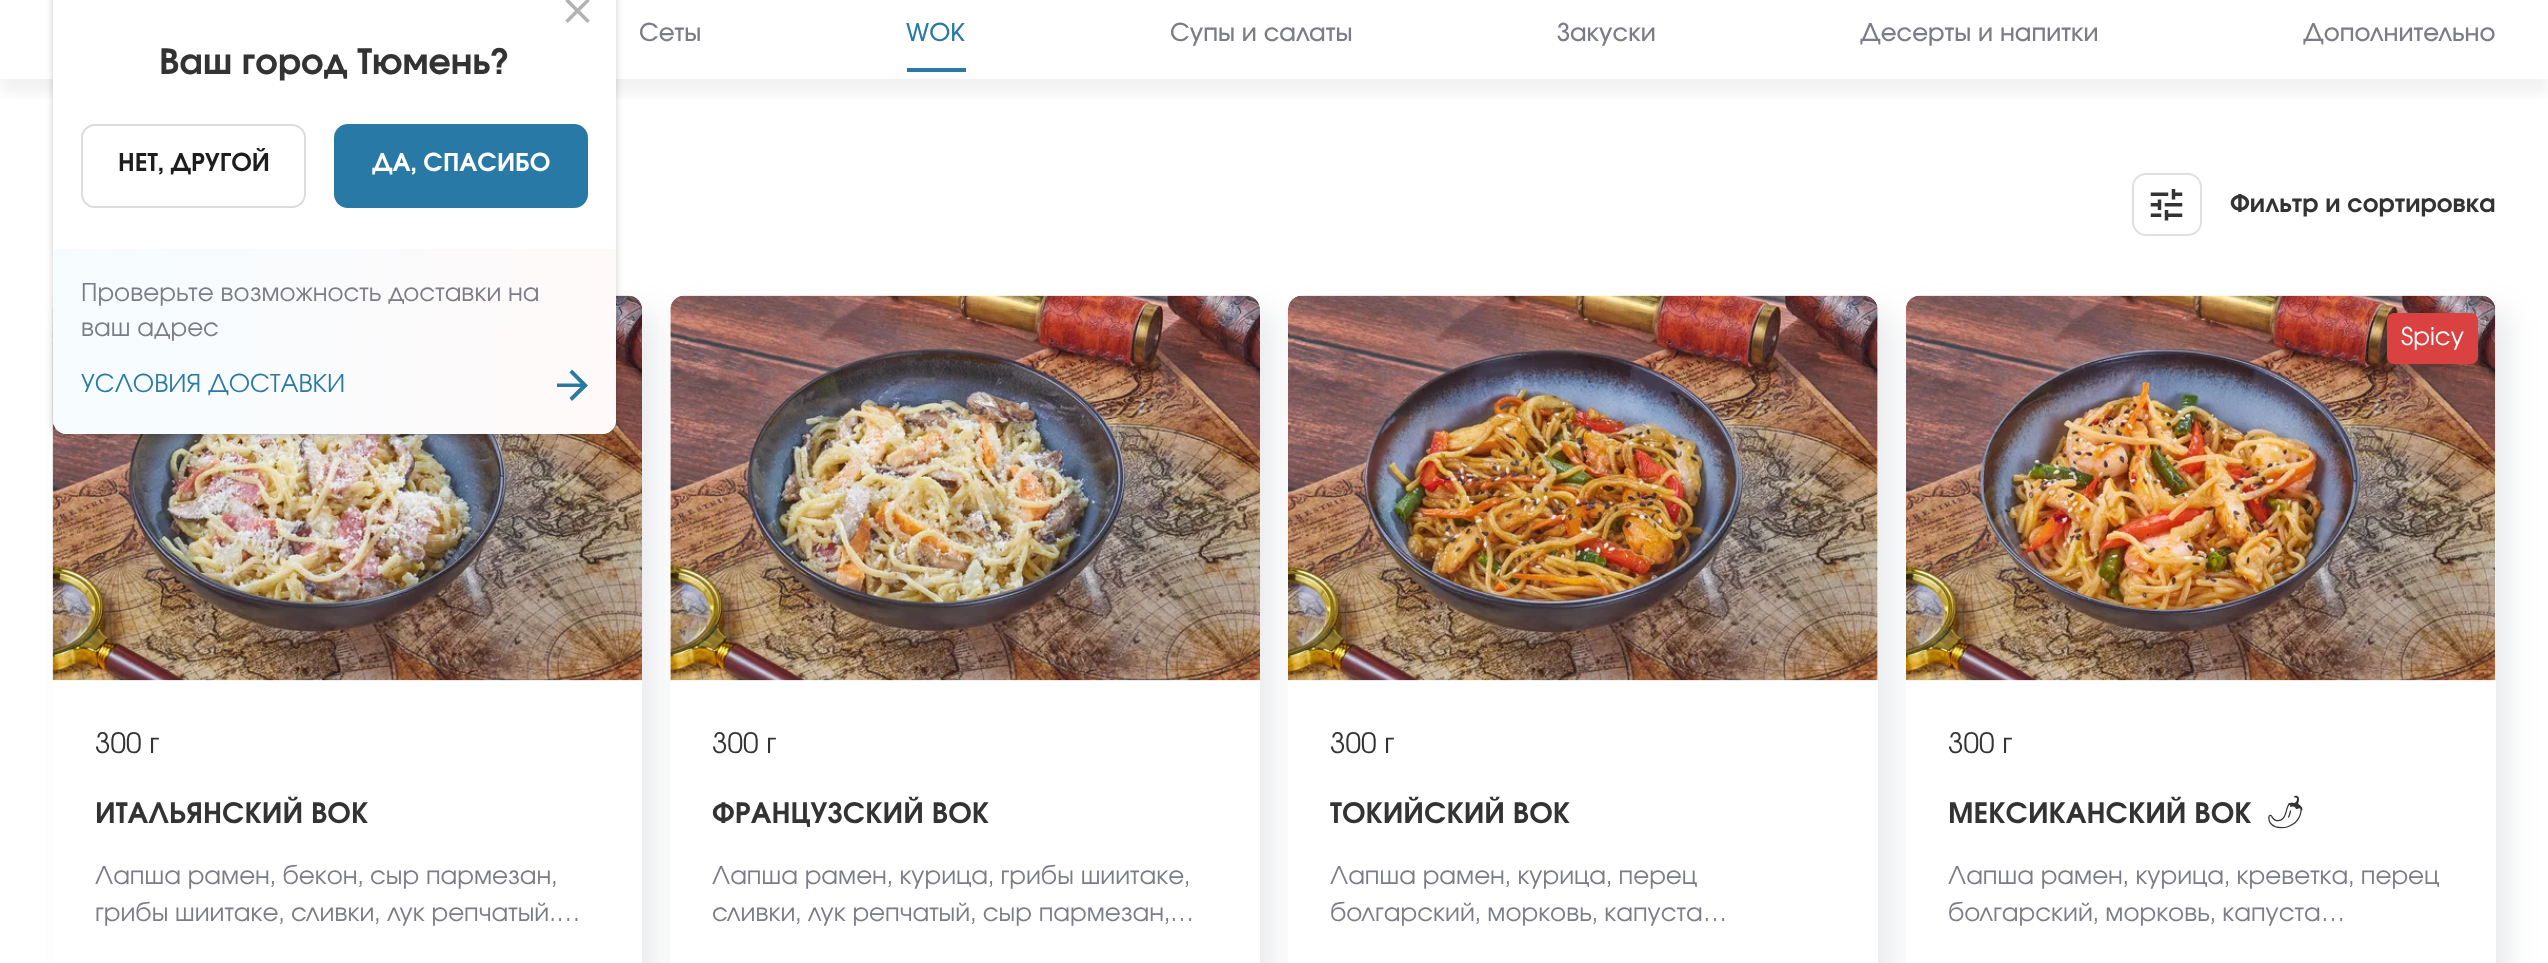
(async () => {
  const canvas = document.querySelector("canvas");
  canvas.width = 2548;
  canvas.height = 963;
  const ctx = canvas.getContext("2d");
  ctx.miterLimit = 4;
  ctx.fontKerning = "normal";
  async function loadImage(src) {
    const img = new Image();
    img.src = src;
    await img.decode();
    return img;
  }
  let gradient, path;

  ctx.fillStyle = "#ffffff";
  ctx.fillRect(0, 0, 2548, 963);
  ctx.save();
  ctx.beginPath();
  ctx.rect(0, 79, 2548, 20);
  ctx.clip();
  ctx.fillStyle = "rgba(117, 118, 132, 0.1)";
  ctx.filter = "blur(7px)";
  ctx.beginPath();
  ctx.rect(0, -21, 2548, 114);
  ctx.fill();
  ctx.filter = "none";
  ctx.restore();
  ctx.fillStyle = "#2979a6";
  ctx.fillRect(907, 68, 59, 4);
  ctx.save();
  path = new Path2D("M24 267H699V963H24ZM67 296H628C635.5 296 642 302.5 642 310V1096C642 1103.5 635.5 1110 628 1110H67C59.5 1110 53 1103.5 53 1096V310C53 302.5 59.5 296 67 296Z");
  ctx.clip(path, "evenodd");
  ctx.fillStyle = "rgba(117, 118, 132, 0.15)";
  ctx.filter = "blur(14px)";
  ctx.beginPath();
  ctx.roundRect(67, 310, 589, 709, 14);
  ctx.fill();
  ctx.filter = "none";
  ctx.restore();
  ctx.drawImage(await loadImage("img/3.png"), 52, 295, 590, 386);
  ctx.fillStyle = "rgba(0, 0, 0, 0.2)";
  ctx.filter = "blur(3.5px)";
  ctx.beginPath();
  ctx.roundRect(53, -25, 563, 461, 14);
  ctx.fill();
  ctx.filter = "none";
  ctx.fillStyle = "#ffffff";
  ctx.beginPath();
  ctx.roundRect(53, -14, 563, 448, 14);
  ctx.fill();
  ctx.drawImage(await loadImage("img/1.png"), 565, 0, 25, 23);
  ctx.beginPath();
  ctx.roundRect(82, 125, 223, 82, 13);
  ctx.strokeStyle = "#dbdddd";
  ctx.lineWidth = 2;
  ctx.stroke();
  ctx.fillStyle = "#2979a6";
  ctx.beginPath();
  ctx.roundRect(335, 125, 252, 82, 13);
  ctx.fill();
  ctx.strokeStyle = "#2979a6";
  ctx.stroke();
  gradient = ctx.createLinearGradient(47, 318, 622, 366);
  gradient.addColorStop(0, "#f5fcff");
  gradient.addColorStop(1, "#fff9f9");
  ctx.fillStyle = gradient;
  ctx.beginPath();
  ctx.roundRect(53, 249, 563, 185, [0, 0, 14, 14]);
  ctx.fill();
  ctx.save();
  ctx.beginPath();
  ctx.rect(557, 369, 31, 32);
  ctx.clip();
  ctx.fillStyle = "#2979a6";
  path = new Path2D("M572 369.5L569.5 372.5L580.5 383.5H556.5V387H580.5L569.5 398L572 401L588 385.5Z");
  ctx.fill(path);
  ctx.restore();
  ctx.drawImage(await loadImage("img/2.png"), 2132, 173, 70, 63);
  ctx.fillStyle = "rgba(117, 118, 132, 0.15)";
  ctx.filter = "blur(14px)";
  ctx.beginPath();
  ctx.roundRect(684, 310, 590, 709, 14);
  ctx.fill();
  ctx.filter = "none";
  ctx.fillStyle = "#ffffff";
  ctx.beginPath();
  ctx.roundRect(670, 296, 590, 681, 14);
  ctx.fill();
  ctx.drawImage(await loadImage("img/4.png"), 670, 295, 590, 386);
  ctx.fillStyle = "rgba(117, 118, 132, 0.15)";
  ctx.filter = "blur(14px)";
  ctx.beginPath();
  ctx.roundRect(1302, 310, 590, 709, 14);
  ctx.fill();
  ctx.filter = "none";
  ctx.fillStyle = "#ffffff";
  ctx.beginPath();
  ctx.roundRect(1288, 296, 590, 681, 14);
  ctx.fill();
  ctx.drawImage(await loadImage("img/5.png"), 1288, 295, 590, 386);
  ctx.fillStyle = "rgba(117, 118, 132, 0.15)";
  ctx.filter = "blur(14px)";
  ctx.beginPath();
  ctx.roundRect(1920, 310, 590, 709, 14);
  ctx.fill();
  ctx.filter = "none";
  ctx.fillStyle = "#ffffff";
  ctx.beginPath();
  ctx.roundRect(1906, 296, 590, 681, 14);
  ctx.fill();
  ctx.drawImage(await loadImage("img/6.png"), 1906, 295, 590, 386);
  ctx.fillStyle = "#da4141";
  ctx.beginPath();
  ctx.roundRect(2387, 313, 91, 51, 7);
  ctx.fill();
  ctx.font = "500 24.5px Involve";
  ctx.fillStyle = "#7b7c85";
  ctx.fillText("Сеты", 639, 41);
  ctx.fillStyle = "#2979a6";
  ctx.fillText("WOK", 906, 41);
  ctx.fillStyle = "#7b7c85";
  for (const [text, x, y] of [
    ["Супы и салаты", 1170, 41],
    ["Закуски", 1557, 41],
    ["Десерты и напитки", 1860, 41],
    ["Дополнительно", 2303, 41],
  ]) {
    ctx.fillText(text, x, y);
  }
  ctx.font = "bold 35px Involve";
  ctx.fillStyle = "#333333";
  ctx.fillText("Ваш город Тюмень?", 159, 74);
  ctx.font = "bold 24.5px Involve";
  ctx.fillStyle = "#1d1d1d";
  ctx.fillText("НЕТ, ДРУГОЙ", 118, 171);
  ctx.fillStyle = "#ffffff";
  ctx.fillText("ДА, СПАСИБО", 372, 171);
  ctx.font = "24.5px Involve";
  ctx.fillStyle = "#7b7c85";
  ctx.fillText("Проверьте возможность доставки на", 81, 301);
  ctx.fillText("ваш адрес", 81, 336);
  ctx.fillStyle = "#2979a6";
  ctx.fillText("УСЛОВИЯ ДОСТАВКИ", 81, 392);
  ctx.font = "bold 24.5px Involve";
  ctx.fillStyle = "#333333";
  ctx.fillText("Фильтр и сортировка", 2230, 212);
  ctx.font = "28px Involve";
  ctx.fillText("300 г", 95, 753);
  ctx.font = "bold 28px Involve";
  ctx.fillText("ИТАЛЬЯНСКИЙ ВОК", 95, 823);
  ctx.font = "24.5px Involve";
  ctx.fillStyle = "#7b7c85";
  ctx.fillText("Лапша рамен, бекон, сыр пармезан,", 95, 884);
  ctx.fillText("грибы шиитаке, сливки, лук репчатый.…", 95, 921);
  ctx.font = "28px Involve";
  ctx.fillStyle = "#333333";
  ctx.fillText("300 г", 712, 753);
  ctx.font = "bold 28px Involve";
  ctx.fillText("ФРАНЦУЗСКИЙ ВОК", 712, 823);
  ctx.font = "24.5px Involve";
  ctx.fillStyle = "#7b7c85";
  ctx.fillText("Лапша рамен, курица, грибы шиитаке,", 712, 884);
  ctx.fillText("сливки, лук репчатый, сыр пармезан,…", 712, 921);
  ctx.font = "28px Involve";
  ctx.fillStyle = "#333333";
  ctx.fillText("300 г", 1330, 753);
  ctx.font = "bold 28px Involve";
  ctx.fillText("ТОКИЙСКИЙ ВОК", 1330, 823);
  ctx.font = "24.5px Involve";
  ctx.fillStyle = "#7b7c85";
  ctx.fillText("Лапша рамен, курица, перец", 1330, 884);
  ctx.fillText("болгарский, морковь, капуста…", 1330, 921);
  ctx.fillStyle = "#ffffff";
  ctx.fillText("Spicy", 2401, 345);
  ctx.font = "28px Involve";
  ctx.fillStyle = "#333333";
  ctx.fillText("300 г", 1948, 753);
  ctx.font = "bold 28px Involve";
  ctx.fillText("МЕКСИКАНСКИЙ ВОК", 1948, 823);
  ctx.font = "32px Noto Emoji";
  ctx.fillText("🌶", 2265, 823);
  ctx.font = "24.5px Involve";
  ctx.fillStyle = "#7b7c85";
  ctx.fillText("Лапша рамен, курица, креветка, перец", 1948, 884);
  ctx.fillText("болгарский, морковь, капуста…", 1948, 921);
})();
